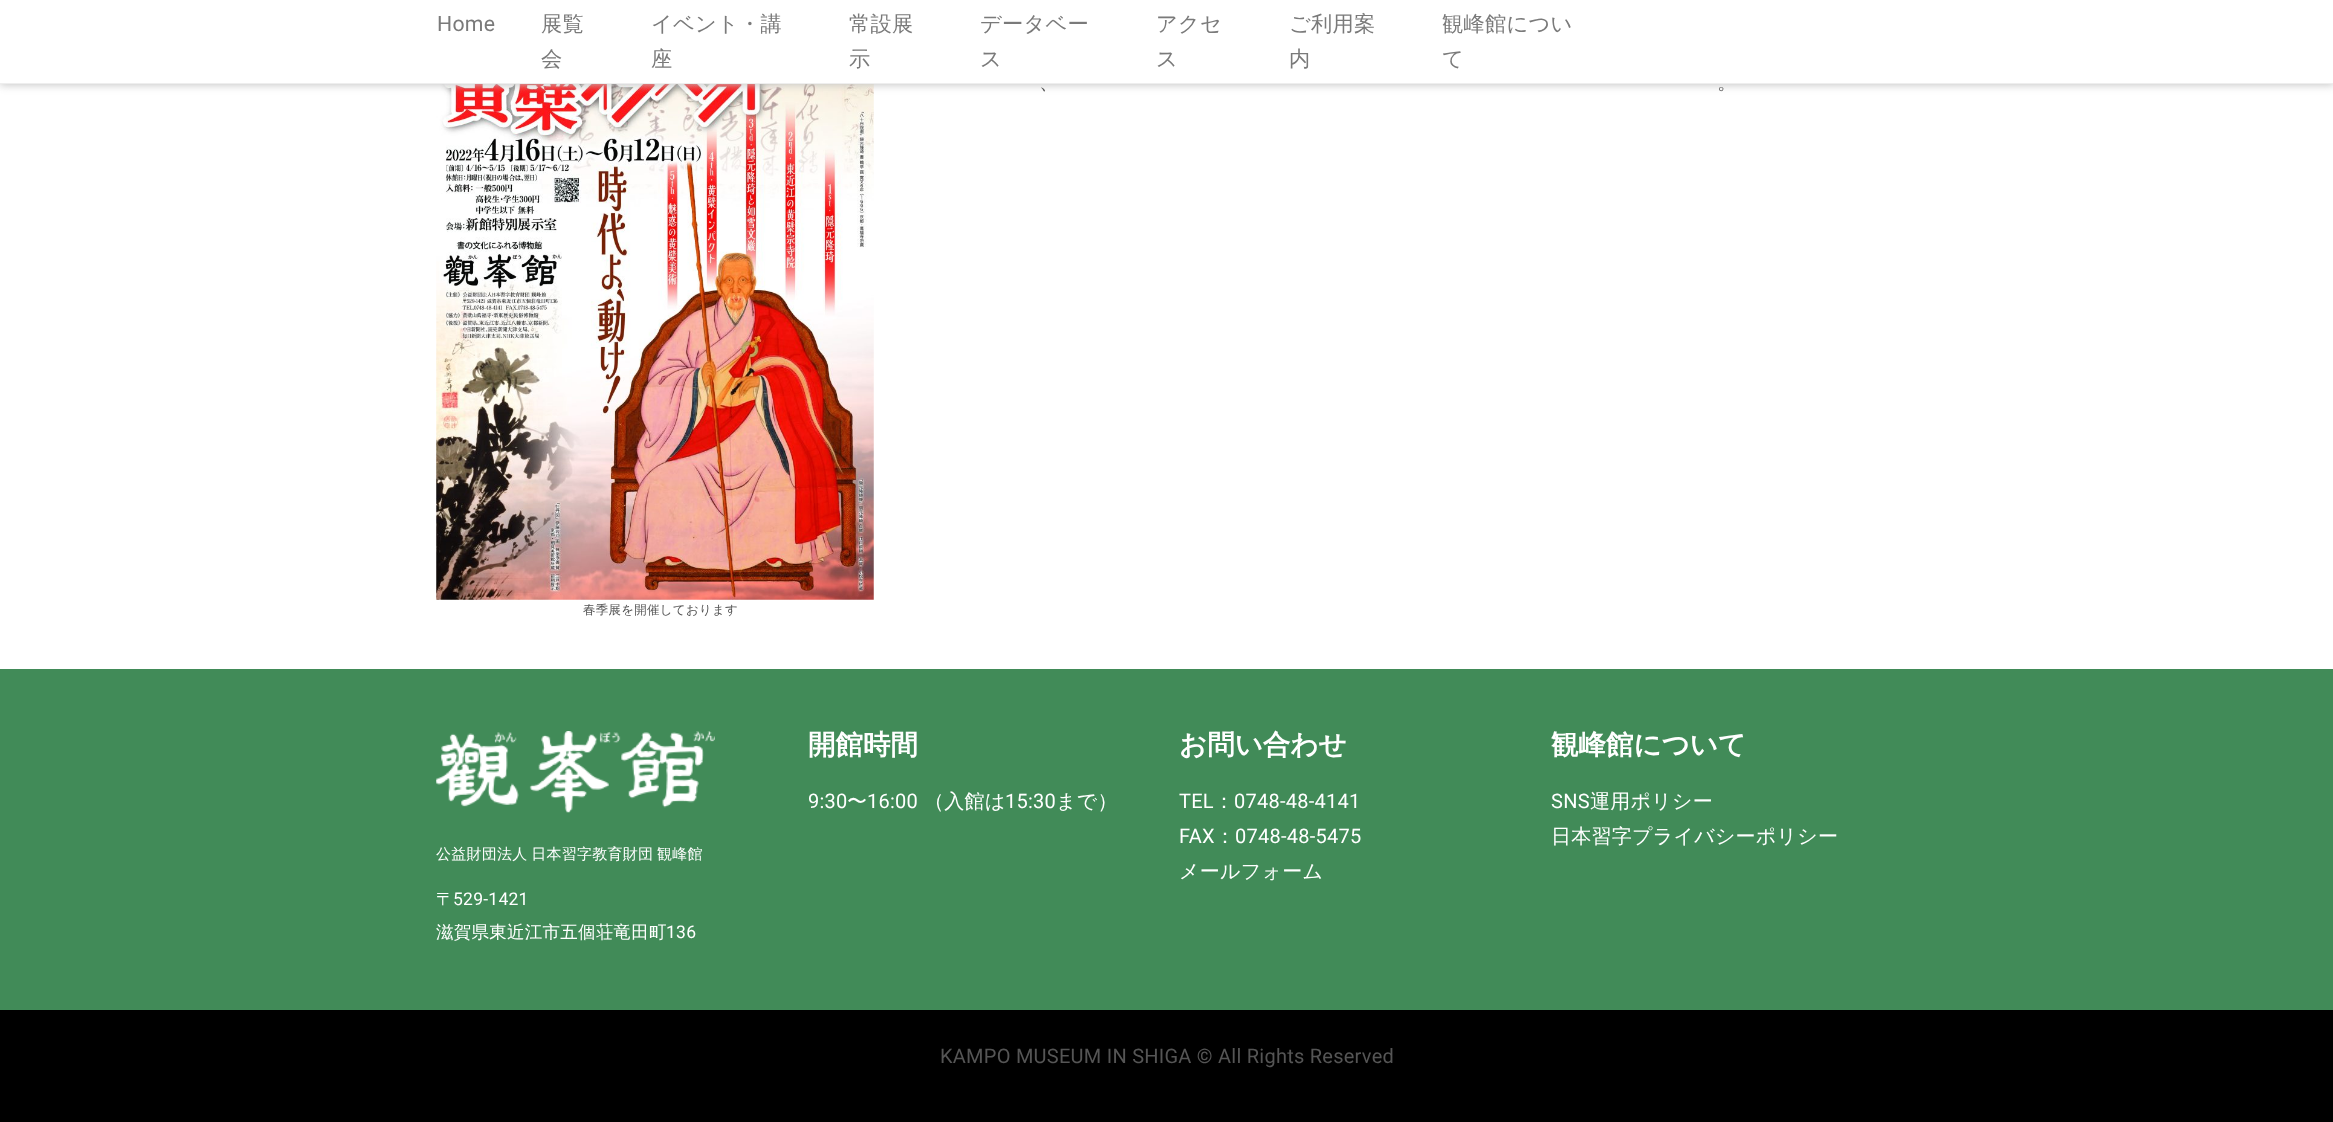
(async () => {
  const canvas = document.querySelector("canvas");
  canvas.width = 2333;
  canvas.height = 1122;
  const ctx = canvas.getContext("2d");
  ctx.miterLimit = 4;
  ctx.fontKerning = "normal";
  async function loadImage(src) {
    const img = new Image();
    img.src = src;
    await img.decode();
    return img;
  }

  ctx.fillStyle = "#ffffff";
  ctx.fillRect(0, 0, 2333, 1122);
  ctx.drawImage(await loadImage("img/1.png"), 436, 84, 438, 516);
  ctx.fillStyle = "#c5c5c5";
  ctx.filter = "blur(4px)";
  ctx.beginPath();
  ctx.rect(0, 1, 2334, 84);
  ctx.fill();
  ctx.filter = "none";
  for (const [x, y, w, h, color] of [
    [0, 0, 2333, 83, "#ffffff"],
    [0, 83, 2333, 1, "#eeeeee"],
    [0, 669, 2333, 341, "#418b58"],
  ]) {
    ctx.fillStyle = color;
    ctx.fillRect(x, y, w, h);
  }
  ctx.drawImage(await loadImage("img/2.png"), 436, 731, 279, 82);
  ctx.fillStyle = "#000000";
  ctx.fillRect(0, 1010, 2333, 112);
  ctx.letterSpacing = "0.25px";
  ctx.font = "21.25px Roboto";
  ctx.fillStyle = "#7a7a7a";
  ctx.fillText("Home", 437, 31);
  ctx.font = "500 21.25px WenQuanYi Zen Hei";
  for (const [text, x, y] of [
    ["展覧", 541, 31],
    ["会", 541, 66],
    ["イベント・講", 651, 31],
    ["座", 651, 66],
    ["常設展", 849, 31],
    ["示", 849, 66],
    ["データベー", 980, 31],
    ["ス", 980, 66],
    ["アクセ", 1156, 31],
    ["ス", 1156, 66],
    ["ご利用案", 1289, 31],
    ["内", 1289, 66],
    ["観峰館につい", 1442, 31],
    ["て", 1442, 66],
  ]) {
    ctx.fillText(text, x, y);
  }
  ctx.font = "500 20px WenQuanYi Zen Hei";
  ctx.fillStyle = "#555555";
  ctx.fillText("、", 1039, 89);
  ctx.fillText("。", 1717, 89);
  ctx.font = "500 12.5px WenQuanYi Zen Hei";
  ctx.fillText("春季展を開催しております", 583, 614);
  ctx.letterSpacing = "0px";
  ctx.font = "bold 27.5px WenQuanYi Zen Hei";
  ctx.fillStyle = "#ffffff";
  ctx.fillText("開館時間", 808, 754);
  ctx.letterSpacing = "0.25px";
  ctx.font = "20px Roboto";
  ctx.fillText("9:30", 808, 808);
  ctx.font = "500 20px WenQuanYi Zen Hei";
  ctx.fillText("〜", 847, 808);
  ctx.font = "20px Roboto";
  ctx.fillText("16:00", 867, 808);
  ctx.font = "500 20px WenQuanYi Zen Hei";
  ctx.fillText("（入館は", 924, 808);
  ctx.font = "20px Roboto";
  ctx.fillText("15:30", 1005, 808);
  ctx.font = "500 20px WenQuanYi Zen Hei";
  ctx.fillText("まで）", 1056, 808);
  ctx.letterSpacing = "0px";
  ctx.font = "bold 27.5px WenQuanYi Zen Hei";
  ctx.fillText("お問い合わせ", 1179, 754);
  ctx.letterSpacing = "0.25px";
  ctx.font = "20px Roboto";
  ctx.fillText("TEL", 1179, 808);
  ctx.font = "500 20px WenQuanYi Zen Hei";
  ctx.fillText("：", 1214, 808);
  ctx.font = "20px Roboto";
  ctx.fillText("0748-48-4141", 1234, 808);
  ctx.fillText("FAX", 1179, 843);
  ctx.font = "500 20px WenQuanYi Zen Hei";
  ctx.fillText("：", 1215, 843);
  ctx.font = "20px Roboto";
  ctx.fillText("0748-48-5475", 1235, 843);
  ctx.font = "500 20px WenQuanYi Zen Hei";
  ctx.fillText("メールフォーム", 1179, 878);
  ctx.letterSpacing = "0px";
  ctx.font = "bold 27.5px WenQuanYi Zen Hei";
  ctx.fillText("観峰館について", 1551, 754);
  ctx.letterSpacing = "0.25px";
  ctx.font = "20px Roboto";
  ctx.fillText("SNS", 1551, 808);
  ctx.font = "500 20px WenQuanYi Zen Hei";
  ctx.fillText("運用ポリシー", 1590, 808);
  ctx.fillText("日本習字プライバシーポリシー", 1551, 843);
  ctx.wordSpacing = "-1px";
  ctx.font = "500 15px WenQuanYi Zen Hei";
  ctx.fillText("公益財団法人 日本習字教育財団 観峰館", 436, 859);
  ctx.wordSpacing = "0px";
  ctx.font = "500 17.5px WenQuanYi Zen Hei";
  ctx.fillText("〒", 436, 905);
  ctx.font = "17.5px Roboto";
  ctx.fillText("529-1421", 453, 905);
  ctx.font = "500 17.5px WenQuanYi Zen Hei";
  ctx.fillText("滋賀県東近江市五個荘竜田町", 436, 938);
  ctx.font = "17.5px Roboto";
  ctx.fillText("136", 666, 938);
  ctx.font = "20px Roboto";
  ctx.fillStyle = "#555555";
  ctx.fillText("KAMPO MUSEUM IN SHIGA ©︎ All Rights Reserved", 940, 1063);
})();
